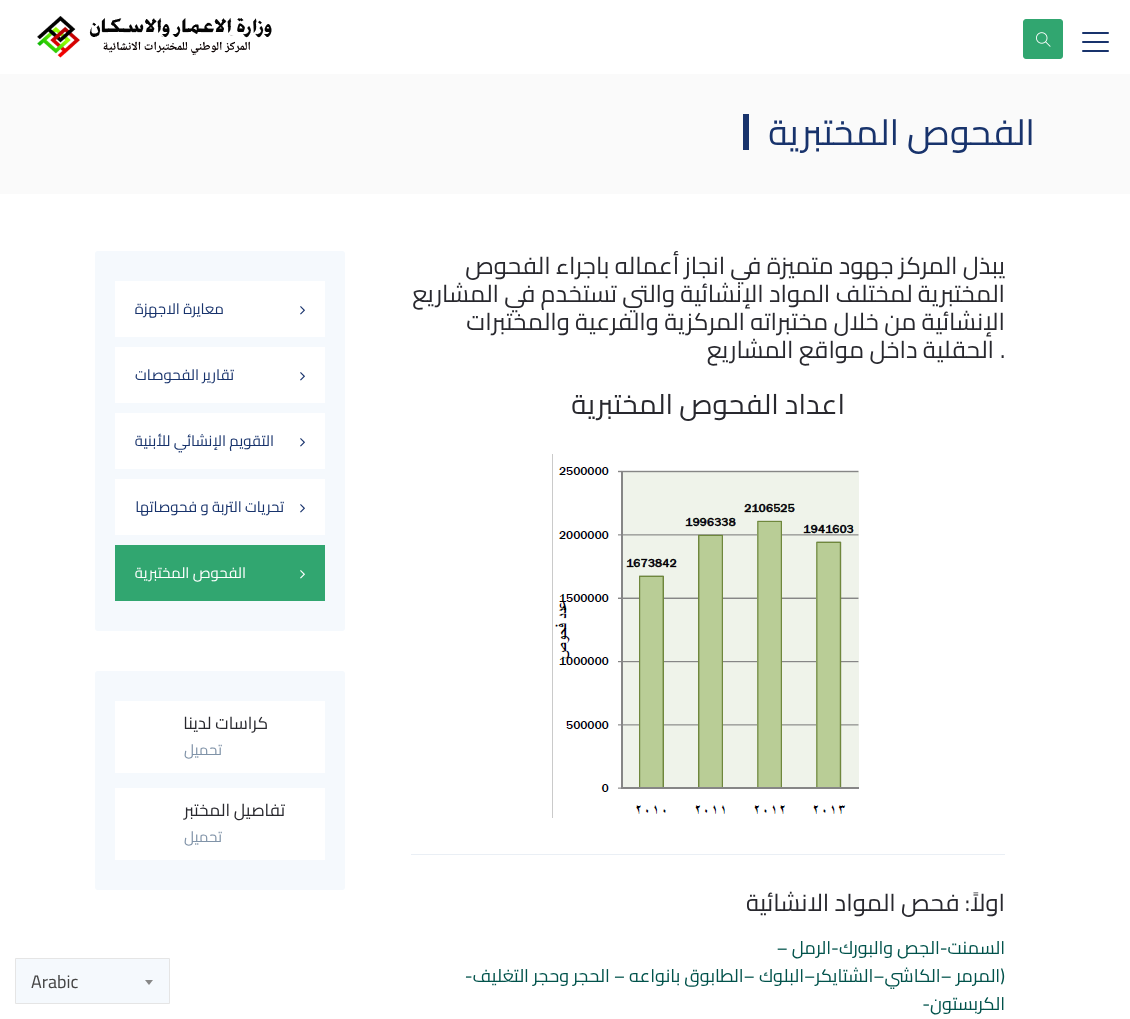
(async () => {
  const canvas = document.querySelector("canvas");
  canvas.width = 1130;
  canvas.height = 1019;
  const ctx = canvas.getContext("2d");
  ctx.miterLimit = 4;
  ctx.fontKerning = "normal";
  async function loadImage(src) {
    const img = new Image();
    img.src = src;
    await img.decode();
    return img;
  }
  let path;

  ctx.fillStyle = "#ffffff";
  ctx.fillRect(0, 0, 1130, 1019);
  ctx.fillStyle = "#18336c";
  ctx.beginPath();
  ctx.roundRect(1082, 41, 27, 2, 1);
  ctx.fill();
  ctx.beginPath();
  ctx.roundRect(1082, 32, 27, 2, 1);
  ctx.fill();
  ctx.beginPath();
  ctx.roundRect(1082, 50, 27, 2, 1);
  ctx.fill();
  ctx.fillStyle = "#31a670";
  ctx.beginPath();
  ctx.roundRect(1023.5, 19.5, 39, 39, 2.5);
  ctx.fill();
  ctx.strokeStyle = "#31a670";
  ctx.stroke();
  ctx.drawImage(await loadImage("img/1.png"), 1036, 32, 15, 15);
  ctx.drawImage(await loadImage("img/2.png"), 37, 16, 235, 42);
  ctx.fillStyle = "#fafafa";
  ctx.fillRect(0, 74, 1130, 120);
  ctx.fillStyle = "#18336c";
  ctx.fillRect(743, 114, 6, 36);
  ctx.drawImage(await loadImage("img/3.png"), 552, 454, 307, 364);
  ctx.fillStyle = "#eaeff5";
  ctx.fillRect(411, 854, 594, 1);
  ctx.fillStyle = "#f5f9fd";
  ctx.beginPath();
  ctx.roundRect(95, 251, 250, 380, 3);
  ctx.fill();
  ctx.fillStyle = "#ffffff";
  ctx.fillRect(115, 281, 210, 56);
  ctx.drawImage(await loadImage("img/4.png"), 300, 306, 5, 9);
  ctx.fillRect(115, 347, 210, 56);
  ctx.drawImage(await loadImage("img/4.png"), 300, 372, 5, 9);
  ctx.fillRect(115, 413, 210, 56);
  ctx.drawImage(await loadImage("img/4.png"), 300, 438, 5, 9);
  ctx.fillRect(115, 479, 210, 56);
  ctx.drawImage(await loadImage("img/4.png"), 300, 504, 5, 9);
  ctx.fillStyle = "#31a670";
  ctx.fillRect(115, 545, 210, 56);
  ctx.drawImage(await loadImage("img/5.png"), 300, 570, 5, 9);
  ctx.fillStyle = "#f5f9fd";
  ctx.beginPath();
  ctx.roundRect(95, 671, 250, 219, 3);
  ctx.fill();
  ctx.fillStyle = "#ffffff";
  ctx.fillRect(115, 701, 210, 72);
  ctx.fillRect(115, 788, 210, 72);
  ctx.fillStyle = "#f5f9fd";
  ctx.beginPath();
  ctx.rect(15.5, 958.5, 154, 45);
  ctx.fill();
  ctx.strokeStyle = "#e5e5e5";
  ctx.stroke();
  ctx.fillStyle = "#888888";
  path = new Path2D("M145 980H153L149 985Z");
  ctx.fill(path);
  ctx.direction = "rtl";
  ctx.font = "36px Cairo";
  ctx.fillStyle = "#18336c";
  ctx.fillText("الفحوص المختبرية", 1035, 145);
  ctx.font = "24px Cairo";
  ctx.fillStyle = "#28282e";
  for (const [text, x, y] of [
    ["يبذل المركز جهود متميزة في انجاز أعماله باجراء الفحوص", 1005, 274],
    ["المختبرية لمختلف المواد الإنشائية والتي تستخدم في المشاريع", 1005, 302],
    ["الإنشائية من خلال مختبراته المركزية والفرعية والمختبرات", 1005, 330],
  ]) {
    ctx.fillText(text, x, y);
  }
  ctx.direction = "ltr";
  ctx.fillText(".", 1000, 358);
  ctx.direction = "rtl";
  ctx.fillText("الحقلية داخل مواقع المشاريع", 994, 358);
  ctx.font = "28px Cairo";
  ctx.fillText("اعداد الفحوص المختبرية", 845, 414);
  ctx.font = "24px Cairo";
  ctx.fillText("اولاً: فحص المواد الانشائية", 1005, 911);
  ctx.font = "18px Cairo";
  ctx.fillStyle = "#01524b";
  for (const [text, x, y] of [
    ["السمنت-الجص والبورك-الرمل –", 1005, 954],
    ["(المرمر –الكاشي–الشتايكر–البلوك –الطابوق بانواعه – الحجر وحجر التغليف-", 1005, 982],
    ["الكربستون-", 1005, 1010],
  ]) {
    ctx.fillText(text, x, y);
  }
  ctx.font = "15px Cairo";
  ctx.fillStyle = "#18336c";
  for (const [text, x, y] of [
    ["معايرة الاجهزة", 224, 314],
    ["تقارير الفحوصات", 234, 380],
    ["التقويم الإنشائي للأبنية", 274, 446],
    ["تحريات التربة و فحوصاتها", 284, 512],
  ]) {
    ctx.fillText(text, x, y);
  }
  ctx.fillStyle = "#ffffff";
  ctx.fillText("الفحوص المختبرية", 246, 578);
  ctx.font = "17px Cairo";
  ctx.fillStyle = "#28282e";
  ctx.fillText("كراسات لدينا", 268, 729);
  ctx.font = "15px Cairo";
  ctx.fillStyle = "#8093a8";
  ctx.fillText("تحميل", 222, 755);
  ctx.font = "17px Cairo";
  ctx.fillStyle = "#28282e";
  ctx.fillText("تفاصيل المختبر", 285, 816);
  ctx.font = "15px Cairo";
  ctx.fillStyle = "#8093a8";
  ctx.fillText("تحميل", 222, 842);
  ctx.direction = "ltr";
  ctx.font = "18px Cairo";
  ctx.fillStyle = "#444444";
  ctx.fillText("Arabic", 31, 988);
})();
